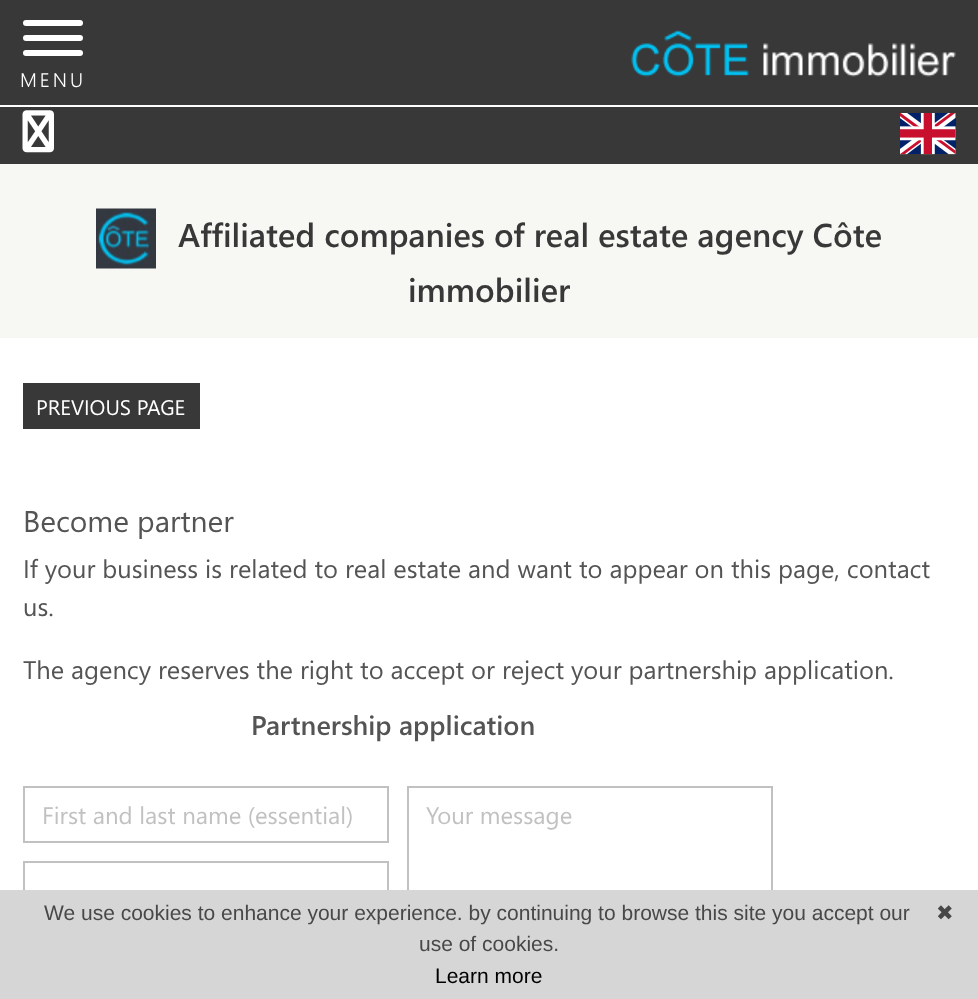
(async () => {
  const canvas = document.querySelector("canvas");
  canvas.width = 978;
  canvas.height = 999;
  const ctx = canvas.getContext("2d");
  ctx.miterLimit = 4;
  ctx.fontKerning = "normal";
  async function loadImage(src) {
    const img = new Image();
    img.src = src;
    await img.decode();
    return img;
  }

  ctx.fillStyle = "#ffffff";
  ctx.fillRect(0, 0, 978, 999);
  ctx.fillStyle = "#383838";
  ctx.fillRect(0, 0, 978, 105);
  ctx.drawImage(await loadImage("img/1.png"), 631, 30, 325, 47);
  ctx.fillStyle = "#ffffff";
  ctx.beginPath();
  ctx.roundRect(23, 20, 60, 6, 3);
  ctx.fill();
  ctx.beginPath();
  ctx.roundRect(23, 35, 60, 6, 3);
  ctx.fill();
  ctx.beginPath();
  ctx.roundRect(23, 50, 60, 6, 3);
  ctx.fill();
  ctx.fillStyle = "#383838";
  ctx.fillRect(0, 107, 978, 57);
  ctx.drawImage(await loadImage("img/2.png"), 22, 110, 32, 43);
  ctx.drawImage(await loadImage("img/3.png"), 900, 113, 56, 42);
  ctx.fillStyle = "#f7f7f4";
  ctx.fillRect(0, 164, 978, 174);
  ctx.drawImage(await loadImage("img/4.png"), 96, 208, 60, 61);
  ctx.fillStyle = "#383838";
  ctx.fillRect(23, 383, 177, 46);
  ctx.strokeStyle = "#c1c1c1";
  ctx.lineWidth = 2;
  ctx.strokeRect(24, 787, 364, 55);
  ctx.strokeRect(24, 862, 364, 55);
  ctx.strokeRect(408, 787, 364, 130);
  ctx.fillStyle = "#d6d6d6";
  ctx.fillRect(0, 890, 978, 109);
  ctx.letterSpacing = "3px";
  ctx.font = "300 19.5px Segoe UI";
  ctx.fillStyle = "#ffffff";
  ctx.fillText("MENU", 20, 87);
  ctx.letterSpacing = "0px";
  ctx.font = "600 33px Segoe UI";
  ctx.fillStyle = "#383838";
  ctx.fillText("Affiliated companies of real estate agency Côte", 178, 247);
  ctx.fillText("immobilier", 408, 302);
  ctx.font = "21px Segoe UI";
  ctx.fillStyle = "#ffffff";
  ctx.fillText("PREVIOUS PAGE", 36, 415);
  ctx.font = "30px Segoe UI";
  ctx.fillStyle = "#545454";
  ctx.fillText("Become partner", 23, 532);
  ctx.font = "25.5px Segoe UI";
  for (const [text, x, y] of [
    ["If your business is related to real estate and want to appear on this page, contact", 23, 578],
    ["us.", 23, 616],
    ["The agency reserves the right to accept or reject your partnership application.", 23, 679],
  ]) {
    ctx.fillText(text, x, y);
  }
  ctx.font = "600 27px Segoe UI";
  ctx.fillText("Partnership application", 251, 735);
  ctx.font = "24px Segoe UI";
  ctx.fillStyle = "#c1c1c1";
  ctx.fillText("First and last name (essential)", 42, 824);
  ctx.fillText("Your message", 426, 824);
  ctx.font = "21px Liberation Sans";
  ctx.fillStyle = "#484848";
  ctx.fillText("We use cookies to enhance your experience. by continuing to browse this site you accept our", 44, 920);
  ctx.fillText("use of cookies.", 419, 951);
  ctx.fillStyle = "#000000";
  ctx.fillText("Learn more", 435, 983);
  ctx.font = "21px DejaVu Sans";
  ctx.fillStyle = "#484848";
  ctx.fillText("✖", 936, 920);
})();
